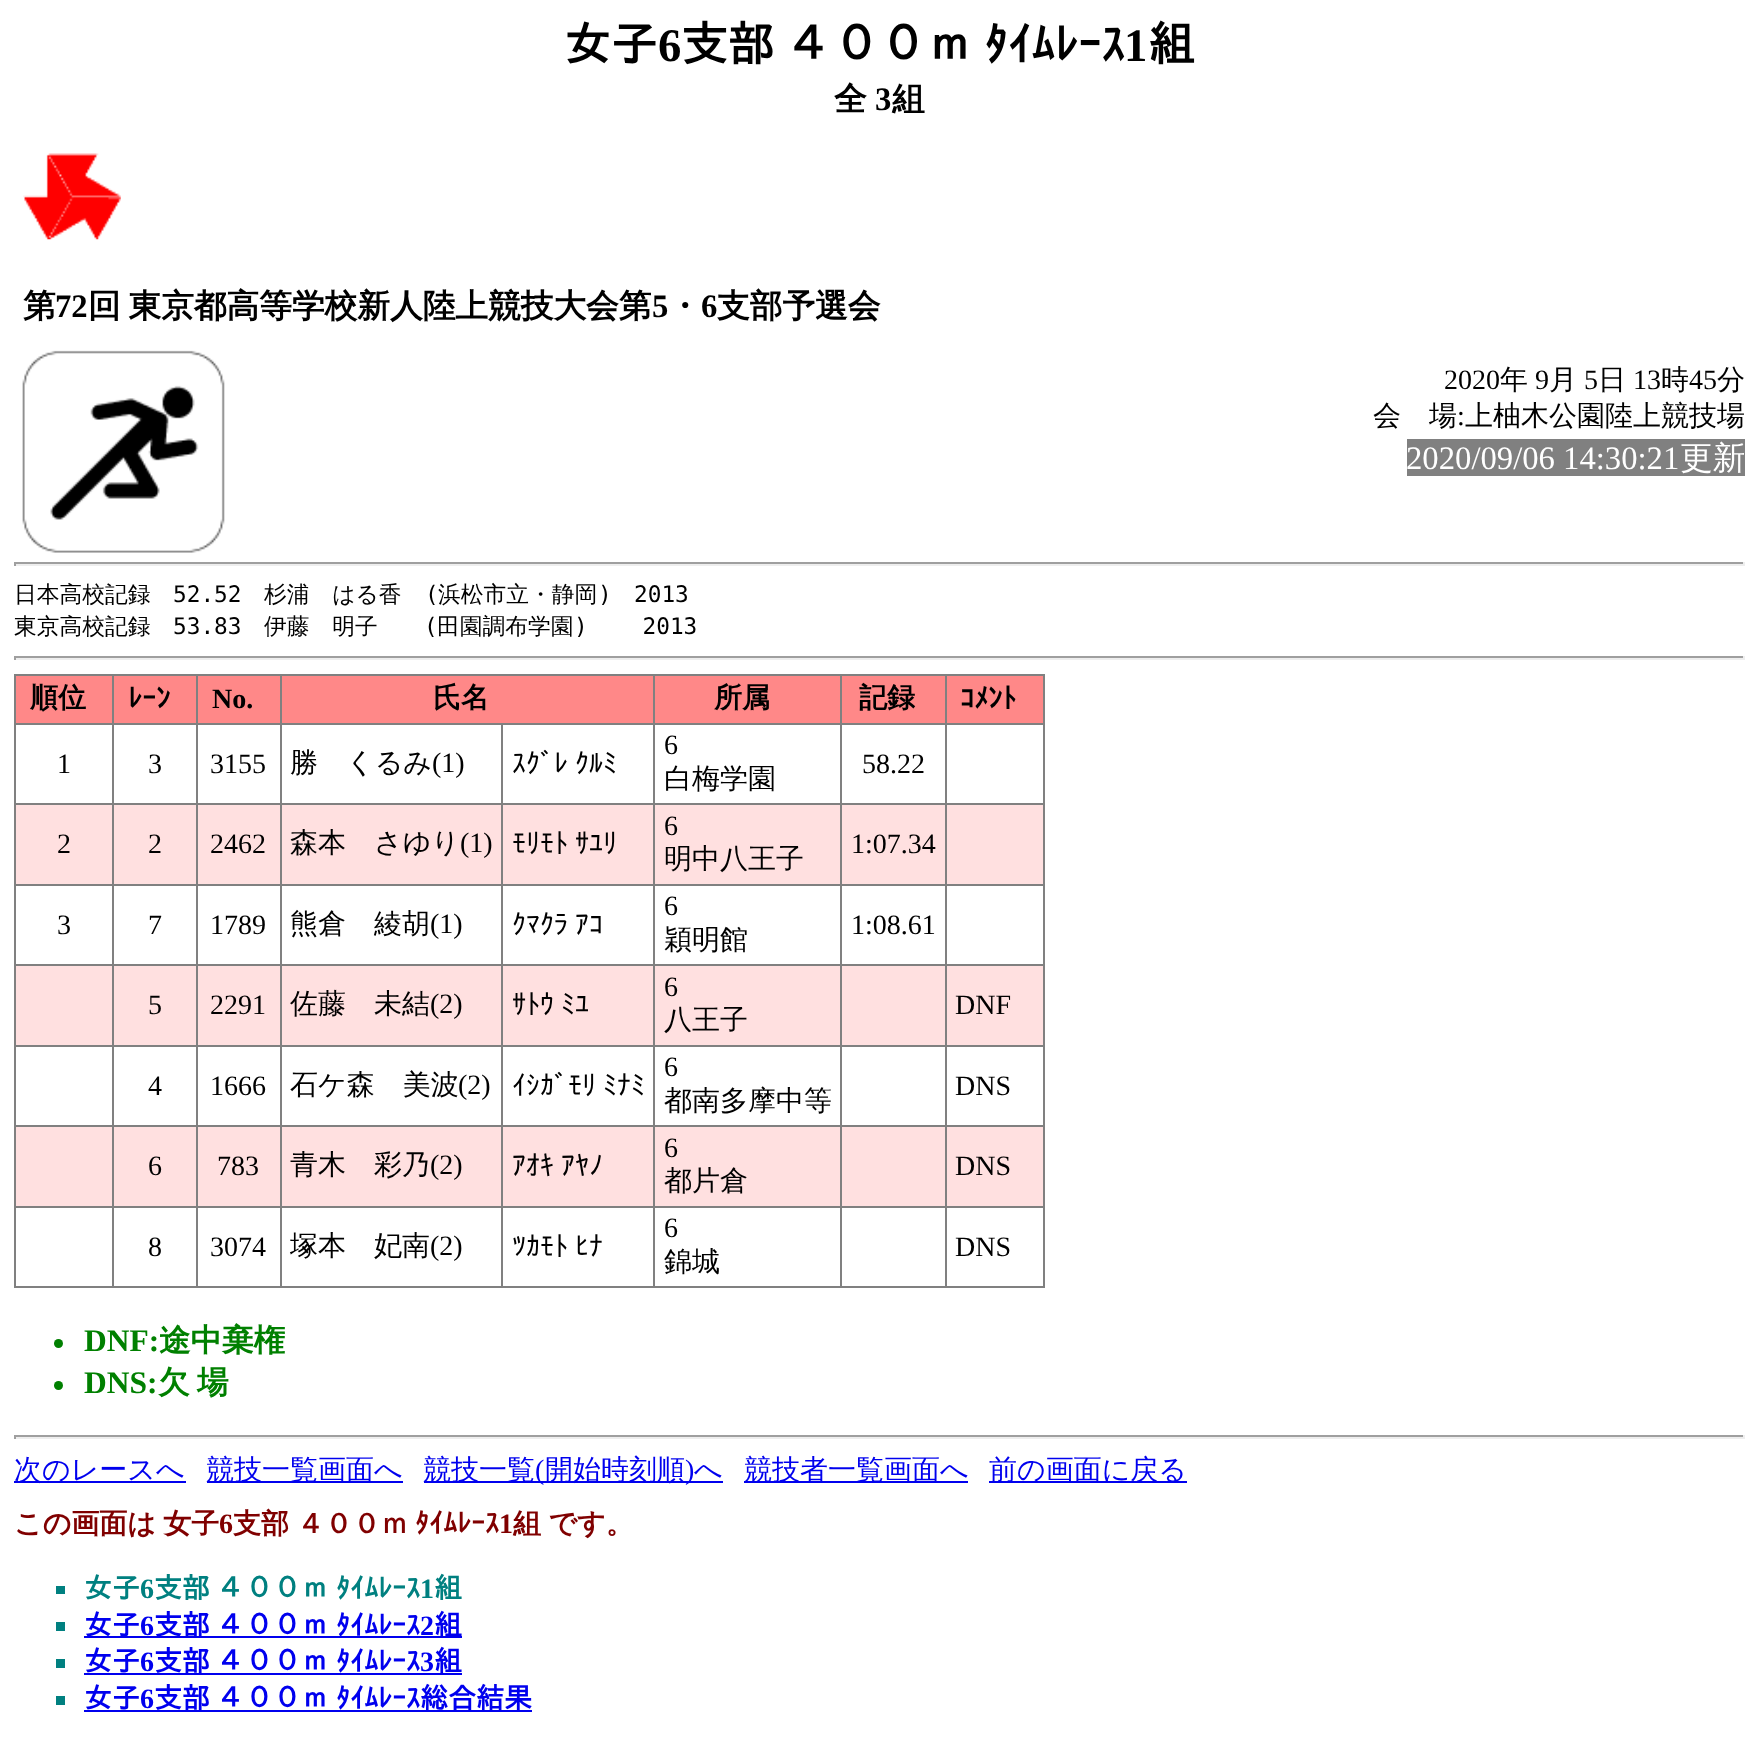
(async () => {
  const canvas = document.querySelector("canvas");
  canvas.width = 1758;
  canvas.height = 1760;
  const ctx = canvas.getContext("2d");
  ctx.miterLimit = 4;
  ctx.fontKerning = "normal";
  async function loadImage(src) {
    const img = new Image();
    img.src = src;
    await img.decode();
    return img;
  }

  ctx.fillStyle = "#ffffff";
  ctx.fillRect(0, 0, 1758, 1760);
  ctx.drawImage(await loadImage("img/1.png"), 23, 153, 98, 87);
  ctx.drawImage(await loadImage("img/2.png"), 22, 350, 203, 203);
  for (const [x, y, w, h, color] of [
    [1407, 439, 338, 37, "#808080"],
    [14, 562, 1731, 2, "#9f9f9f"],
    [1743, 562, 2, 4, "#eeeeee"],
    [14, 564, 1731, 2, "#eeeeee"],
    [14, 562, 2, 4, "#9f9f9f"],
    [14, 656, 1731, 2, "#9f9f9f"],
    [1743, 656, 2, 4, "#eeeeee"],
    [14, 658, 1731, 2, "#eeeeee"],
    [14, 656, 2, 4, "#9f9f9f"],
    [14, 674, 1031, 2, "#808080"],
    [14, 674, 2, 614, "#808080"],
    [16, 676, 96, 47, "#ff8888"],
    [16, 805, 1027, 79, "#ffe0e0"],
    [16, 966, 1027, 79, "#ffe0e0"],
    [16, 1127, 1027, 79, "#ffe0e0"],
    [1043, 674, 2, 614, "#808080"],
    [945, 1286, 100, 2, "#808080"],
    [945, 1206, 2, 82, "#808080"],
    [945, 1206, 100, 2, "#808080"],
    [945, 1125, 2, 83, "#808080"],
    [945, 1125, 100, 2, "#808080"],
    [945, 1045, 2, 82, "#808080"],
    [945, 1045, 100, 2, "#808080"],
    [945, 964, 2, 83, "#808080"],
    [945, 964, 100, 2, "#808080"],
    [945, 884, 2, 82, "#808080"],
    [945, 884, 100, 2, "#808080"],
    [945, 803, 2, 83, "#808080"],
    [945, 803, 100, 2, "#808080"],
    [945, 723, 2, 82, "#808080"],
    [945, 723, 100, 2, "#808080"],
    [945, 674, 2, 51, "#808080"],
    [840, 1286, 107, 2, "#808080"],
    [840, 1206, 2, 82, "#808080"],
    [840, 1206, 107, 2, "#808080"],
    [840, 1125, 2, 83, "#808080"],
    [840, 1125, 107, 2, "#808080"],
    [840, 1045, 2, 82, "#808080"],
    [840, 1045, 107, 2, "#808080"],
    [840, 964, 2, 83, "#808080"],
    [840, 964, 107, 2, "#808080"],
    [840, 884, 2, 82, "#808080"],
    [840, 884, 107, 2, "#808080"],
    [840, 803, 2, 83, "#808080"],
    [840, 803, 107, 2, "#808080"],
    [840, 723, 2, 82, "#808080"],
    [840, 723, 107, 2, "#808080"],
    [840, 674, 2, 51, "#808080"],
    [653, 1286, 189, 2, "#808080"],
    [653, 1206, 2, 82, "#808080"],
    [653, 1206, 189, 2, "#808080"],
    [653, 1125, 2, 83, "#808080"],
    [653, 1125, 189, 2, "#808080"],
    [653, 1045, 2, 82, "#808080"],
    [653, 1045, 189, 2, "#808080"],
    [653, 964, 2, 83, "#808080"],
    [653, 964, 189, 2, "#808080"],
    [653, 884, 2, 82, "#808080"],
    [653, 884, 189, 2, "#808080"],
    [653, 803, 2, 83, "#808080"],
    [653, 803, 189, 2, "#808080"],
    [653, 723, 2, 82, "#808080"],
    [653, 723, 189, 2, "#808080"],
    [653, 674, 2, 51, "#808080"],
    [501, 1286, 154, 2, "#808080"],
    [501, 1206, 2, 82, "#808080"],
    [501, 1206, 154, 2, "#808080"],
    [501, 1125, 2, 83, "#808080"],
    [501, 1125, 154, 2, "#808080"],
    [501, 1045, 2, 82, "#808080"],
    [501, 1045, 154, 2, "#808080"],
    [501, 964, 2, 83, "#808080"],
    [501, 964, 154, 2, "#808080"],
    [501, 884, 2, 82, "#808080"],
    [501, 884, 154, 2, "#808080"],
    [501, 803, 2, 83, "#808080"],
    [501, 803, 154, 2, "#808080"],
    [501, 723, 2, 82, "#808080"],
    [280, 1286, 222, 2, "#808080"],
    [280, 1206, 2, 82, "#808080"],
    [280, 1206, 222, 2, "#808080"],
    [280, 1125, 2, 83, "#808080"],
    [280, 1125, 222, 2, "#808080"],
    [280, 1045, 2, 82, "#808080"],
    [280, 1045, 222, 2, "#808080"],
    [280, 964, 2, 83, "#808080"],
    [280, 964, 222, 2, "#808080"],
    [280, 884, 2, 82, "#808080"],
    [280, 884, 222, 2, "#808080"],
    [280, 803, 2, 83, "#808080"],
    [280, 803, 222, 2, "#808080"],
    [280, 723, 2, 82, "#808080"],
    [280, 723, 375, 2, "#808080"],
    [280, 674, 2, 51, "#808080"],
    [196, 1286, 86, 2, "#808080"],
    [196, 1206, 2, 82, "#808080"],
    [196, 1206, 86, 2, "#808080"],
    [196, 1125, 2, 83, "#808080"],
    [196, 1125, 86, 2, "#808080"],
    [196, 1045, 2, 82, "#808080"],
    [196, 1045, 86, 2, "#808080"],
    [196, 964, 2, 83, "#808080"],
    [196, 964, 86, 2, "#808080"],
    [196, 884, 2, 82, "#808080"],
    [196, 884, 86, 2, "#808080"],
    [196, 803, 2, 83, "#808080"],
    [196, 803, 86, 2, "#808080"],
    [196, 723, 2, 82, "#808080"],
    [196, 723, 86, 2, "#808080"],
    [196, 674, 2, 51, "#808080"],
    [112, 1286, 86, 2, "#808080"],
    [112, 1206, 2, 82, "#808080"],
    [112, 1206, 86, 2, "#808080"],
    [112, 1125, 2, 83, "#808080"],
    [112, 1125, 86, 2, "#808080"],
    [112, 1045, 2, 82, "#808080"],
    [112, 1045, 86, 2, "#808080"],
    [112, 964, 2, 83, "#808080"],
    [112, 964, 86, 2, "#808080"],
    [112, 884, 2, 82, "#808080"],
    [112, 884, 86, 2, "#808080"],
    [112, 803, 2, 83, "#808080"],
    [112, 803, 86, 2, "#808080"],
    [112, 723, 2, 82, "#808080"],
    [112, 723, 86, 2, "#808080"],
    [112, 674, 2, 51, "#808080"],
    [14, 723, 100, 2, "#808080"],
    [114, 676, 82, 47, "#ff8888"],
    [198, 676, 82, 47, "#ff8888"],
    [282, 676, 371, 47, "#ff8888"],
    [655, 676, 185, 47, "#ff8888"],
    [842, 676, 103, 47, "#ff8888"],
    [947, 676, 96, 47, "#ff8888"],
    [14, 803, 100, 2, "#808080"],
    [14, 884, 100, 2, "#808080"],
    [14, 964, 100, 2, "#808080"],
    [14, 1045, 100, 2, "#808080"],
    [14, 1125, 100, 2, "#808080"],
    [14, 1206, 100, 2, "#808080"],
    [14, 1286, 100, 2, "#808080"],
  ]) {
    ctx.fillStyle = color;
    ctx.fillRect(x, y, w, h);
  }
  ctx.fillStyle = "#008000";
  ctx.beginPath();
  ctx.arc(58.5, 1343.5, 4.5, 0, Math.PI * 2);
  ctx.fill();
  ctx.beginPath();
  ctx.arc(58.5, 1385.5, 4.5, 0, Math.PI * 2);
  ctx.fill();
  for (const [x, y, w, h, color] of [
    [14, 1435, 1731, 2, "#9f9f9f"],
    [1743, 1435, 2, 4, "#eeeeee"],
    [14, 1437, 1731, 2, "#eeeeee"],
    [14, 1435, 2, 4, "#9f9f9f"],
    [14, 1481, 172, 2, "#0000ee"],
    [207, 1481, 196, 2, "#0000ee"],
    [424, 1481, 299, 2, "#0000ee"],
    [744, 1481, 224, 2, "#0000ee"],
    [989, 1481, 198, 2, "#0000ee"],
    [56, 1586, 9, 8, "#008080"],
    [56, 1622, 9, 9, "#008080"],
    [84, 1636, 378, 2, "#0000ee"],
    [56, 1659, 9, 9, "#008080"],
    [84, 1673, 378, 2, "#0000ee"],
    [56, 1696, 9, 9, "#008080"],
    [84, 1710, 448, 2, "#0000ee"],
  ]) {
    ctx.fillStyle = color;
    ctx.fillRect(x, y, w, h);
  }
  ctx.font = "bold 46.75px IPAGothic";
  ctx.fillStyle = "#000000";
  ctx.fillText("女子", 564, 61);
  ctx.font = "bold 46.75px Liberation Serif";
  ctx.fillText("6", 658, 61);
  ctx.wordSpacing = "-12px";
  ctx.font = "bold 46.75px IPAGothic";
  ctx.fillText("支部 ４００ｍ ﾀｲﾑﾚｰｽ", 681, 61);
  ctx.wordSpacing = "0px";
  ctx.font = "bold 46.75px Liberation Serif";
  ctx.fillText("1", 1124, 61);
  ctx.font = "bold 46.75px IPAGothic";
  ctx.fillText("組", 1148, 61);
  ctx.font = "bold 32.7px WenQuanYi Zen Hei";
  ctx.fillText("全", 834, 110);
  ctx.font = "bold 32.7px Liberation Serif";
  ctx.fillText("3", 875, 110);
  ctx.font = "bold 32.7px WenQuanYi Zen Hei";
  ctx.fillText("組", 892, 110);
  ctx.fillText("第", 23, 317);
  ctx.font = "bold 32.7px Liberation Serif";
  ctx.fillText("72", 55, 317);
  ctx.wordSpacing = "-2px";
  ctx.font = "bold 32.7px WenQuanYi Zen Hei";
  ctx.fillText("回 東京都高等学校新人陸上競技大会第", 88, 317);
  ctx.wordSpacing = "0px";
  ctx.font = "bold 32.7px Liberation Serif";
  ctx.fillText("5", 652, 317);
  ctx.font = "bold 32.7px WenQuanYi Zen Hei";
  ctx.fillText("・", 668, 317);
  ctx.font = "bold 32.7px Liberation Serif";
  ctx.fillText("6", 701, 317);
  ctx.font = "bold 32.7px WenQuanYi Zen Hei";
  ctx.fillText("支部予選会", 717, 317);
  ctx.font = "28px Liberation Serif";
  ctx.fillText("2020", 1444, 389);
  ctx.font = "500 28px WenQuanYi Zen Hei";
  ctx.fillText("年", 1500, 389);
  ctx.font = "28px Liberation Serif";
  ctx.fillText("9", 1535, 389);
  ctx.font = "500 28px WenQuanYi Zen Hei";
  ctx.fillText("月", 1549, 389);
  ctx.font = "28px Liberation Serif";
  ctx.fillText("5", 1584, 389);
  ctx.font = "500 28px WenQuanYi Zen Hei";
  ctx.fillText("日", 1598, 389);
  ctx.font = "28px Liberation Serif";
  ctx.fillText("13", 1633, 389);
  ctx.font = "500 28px WenQuanYi Zen Hei";
  ctx.fillText("時", 1661, 389);
  ctx.font = "28px Liberation Serif";
  ctx.fillText("45", 1689, 389);
  ctx.font = "500 28px WenQuanYi Zen Hei";
  ctx.fillText("分", 1717, 389);
  ctx.fillText("会　場", 1373, 425);
  ctx.font = "28px Liberation Serif";
  ctx.fillText(":", 1457, 425);
  ctx.font = "500 28px WenQuanYi Zen Hei";
  ctx.fillText("上柚木公園陸上競技場", 1465, 425);
  ctx.font = "32.7px Liberation Serif";
  ctx.fillStyle = "#ffffff";
  ctx.fillText("2020/09/06 14:30:21", 1406, 469);
  ctx.font = "500 32.7px WenQuanYi Zen Hei";
  ctx.fillText("更新", 1680, 469);
  ctx.font = "500 22.75px WenQuanYi Zen Hei";
  ctx.fillStyle = "#000000";
  ctx.fillText("日本高校記録", 14, 602);
  ctx.font = "22.75px DejaVu Sans Mono";
  ctx.fillText("52.52", 173, 602);
  ctx.font = "500 22.75px WenQuanYi Zen Hei";
  ctx.fillText("杉浦　はる香", 264, 602);
  ctx.font = "22.75px DejaVu Sans Mono";
  ctx.fillText("(", 425, 602);
  ctx.font = "500 22.75px WenQuanYi Zen Hei";
  ctx.fillText("浜松市立・静岡", 438, 602);
  ctx.font = "22.75px DejaVu Sans Mono";
  ctx.fillText(")", 598, 602);
  ctx.fillText("2013", 634, 602);
  ctx.font = "500 22.75px WenQuanYi Zen Hei";
  ctx.fillText("東京高校記録", 14, 634);
  ctx.font = "22.75px DejaVu Sans Mono";
  ctx.fillText("53.83", 173, 634);
  ctx.font = "500 22.75px WenQuanYi Zen Hei";
  ctx.fillText("伊藤　明子", 264, 634);
  ctx.font = "22.75px DejaVu Sans Mono";
  ctx.fillText("(", 424, 634);
  ctx.font = "500 22.75px WenQuanYi Zen Hei";
  ctx.fillText("田園調布学園", 437, 634);
  ctx.font = "22.75px DejaVu Sans Mono";
  ctx.fillText(")    2013", 574, 634);
  ctx.font = "bold 28px WenQuanYi Zen Hei";
  ctx.fillText("順位", 30, 707);
  ctx.font = "bold 28px IPAGothic";
  ctx.fillText("ﾚｰﾝ", 128, 708);
  ctx.font = "bold 28px Liberation Serif";
  ctx.fillText("No.", 212, 708);
  ctx.font = "bold 28px WenQuanYi Zen Hei";
  for (const [text, x, y] of [
    ["氏名", 433, 707],
    ["所属", 714, 707],
    ["記録", 859, 707],
  ]) {
    ctx.fillText(text, x, y);
  }
  ctx.font = "bold 28px IPAGothic";
  ctx.fillText("ｺﾒﾝﾄ", 960, 708);
  ctx.font = "28px Liberation Serif";
  for (const [text, x, y] of [
    ["1", 57, 773],
    ["3", 148, 773],
    ["3155", 210, 773],
  ]) {
    ctx.fillText(text, x, y);
  }
  ctx.font = "500 28px WenQuanYi Zen Hei";
  ctx.fillText("勝　くるみ", 290, 772);
  ctx.font = "28px Liberation Serif";
  ctx.fillText("(1)", 432, 772);
  ctx.font = "28px IPAGothic";
  ctx.fillText("ｽｸﾞﾚ", 512, 773);
  ctx.fillText("ｸﾙﾐ", 575, 773);
  ctx.font = "28px Liberation Serif";
  ctx.fillText("6", 664, 754);
  ctx.font = "500 28px WenQuanYi Zen Hei";
  ctx.fillText("白梅学園", 664, 788);
  ctx.font = "28px Liberation Serif";
  for (const [text, x, y] of [
    ["58.22", 862, 773],
    ["2", 57, 853],
    ["2", 148, 853],
    ["2462", 210, 853],
  ]) {
    ctx.fillText(text, x, y);
  }
  ctx.font = "500 28px WenQuanYi Zen Hei";
  ctx.fillText("森本　さゆり", 290, 852);
  ctx.font = "28px Liberation Serif";
  ctx.fillText("(1)", 460, 852);
  ctx.font = "28px IPAGothic";
  ctx.fillText("ﾓﾘﾓﾄ", 512, 853);
  ctx.fillText("ｻﾕﾘ", 575, 853);
  ctx.font = "28px Liberation Serif";
  ctx.fillText("6", 664, 835);
  ctx.font = "500 28px WenQuanYi Zen Hei";
  ctx.fillText("明中八王子", 664, 868);
  ctx.font = "28px Liberation Serif";
  for (const [text, x, y] of [
    ["1:07.34", 851, 853],
    ["3", 57, 934],
    ["7", 148, 934],
    ["1789", 210, 934],
  ]) {
    ctx.fillText(text, x, y);
  }
  ctx.font = "500 28px WenQuanYi Zen Hei";
  ctx.fillText("熊倉　綾胡", 290, 933);
  ctx.font = "28px Liberation Serif";
  ctx.fillText("(1)", 430, 933);
  ctx.font = "28px IPAGothic";
  ctx.fillText("ｸﾏｸﾗ", 512, 934);
  ctx.fillText("ｱｺ", 575, 934);
  ctx.font = "28px Liberation Serif";
  ctx.fillText("6", 664, 915);
  ctx.font = "500 28px WenQuanYi Zen Hei";
  ctx.fillText("穎明館", 664, 949);
  ctx.font = "28px Liberation Serif";
  for (const [text, x, y] of [
    ["1:08.61", 851, 934],
    ["5", 148, 1014],
    ["2291", 210, 1014],
  ]) {
    ctx.fillText(text, x, y);
  }
  ctx.font = "500 28px WenQuanYi Zen Hei";
  ctx.fillText("佐藤　未結", 290, 1013);
  ctx.font = "28px Liberation Serif";
  ctx.fillText("(2)", 430, 1013);
  ctx.font = "28px IPAGothic";
  ctx.fillText("ｻﾄｳ", 512, 1014);
  ctx.fillText("ﾐﾕ", 561, 1014);
  ctx.font = "28px Liberation Serif";
  ctx.fillText("6", 664, 996);
  ctx.font = "500 28px WenQuanYi Zen Hei";
  ctx.fillText("八王子", 664, 1029);
  ctx.font = "28px Liberation Serif";
  for (const [text, x, y] of [
    ["DNF", 955, 1014],
    ["4", 148, 1095],
    ["1666", 210, 1095],
  ]) {
    ctx.fillText(text, x, y);
  }
  ctx.font = "500 28px WenQuanYi Zen Hei";
  ctx.fillText("石ケ森　美波", 290, 1094);
  ctx.font = "28px Liberation Serif";
  ctx.fillText("(2)", 458, 1094);
  ctx.font = "28px IPAGothic";
  ctx.fillText("ｲｼｶﾞﾓﾘ", 512, 1095);
  ctx.fillText("ﾐﾅﾐ", 603, 1095);
  ctx.font = "28px Liberation Serif";
  ctx.fillText("6", 664, 1076);
  ctx.font = "500 28px WenQuanYi Zen Hei";
  ctx.fillText("都南多摩中等", 664, 1110);
  ctx.font = "28px Liberation Serif";
  for (const [text, x, y] of [
    ["DNS", 955, 1095],
    ["6", 148, 1175],
    ["783", 217, 1175],
  ]) {
    ctx.fillText(text, x, y);
  }
  ctx.font = "500 28px WenQuanYi Zen Hei";
  ctx.fillText("青木　彩乃", 290, 1174);
  ctx.font = "28px Liberation Serif";
  ctx.fillText("(2)", 430, 1174);
  ctx.font = "28px IPAGothic";
  ctx.fillText("ｱｵｷ", 512, 1175);
  ctx.fillText("ｱﾔﾉ", 561, 1175);
  ctx.font = "28px Liberation Serif";
  ctx.fillText("6", 664, 1157);
  ctx.font = "500 28px WenQuanYi Zen Hei";
  ctx.fillText("都片倉", 664, 1190);
  ctx.font = "28px Liberation Serif";
  for (const [text, x, y] of [
    ["DNS", 955, 1175],
    ["8", 148, 1256],
    ["3074", 210, 1256],
  ]) {
    ctx.fillText(text, x, y);
  }
  ctx.font = "500 28px WenQuanYi Zen Hei";
  ctx.fillText("塚本　妃南", 290, 1255);
  ctx.font = "28px Liberation Serif";
  ctx.fillText("(2)", 430, 1255);
  ctx.font = "28px IPAGothic";
  ctx.fillText("ﾂｶﾓﾄ", 512, 1256);
  ctx.fillText("ﾋﾅ", 575, 1256);
  ctx.font = "28px Liberation Serif";
  ctx.fillText("6", 664, 1237);
  ctx.font = "500 28px WenQuanYi Zen Hei";
  ctx.fillText("錦城", 664, 1271);
  ctx.font = "28px Liberation Serif";
  ctx.fillText("DNS", 955, 1256);
  ctx.font = "bold 31.5px Liberation Serif";
  ctx.fillStyle = "#008000";
  ctx.fillText("DNF:", 84, 1351);
  ctx.font = "bold 31.5px WenQuanYi Zen Hei";
  ctx.fillText("途中棄権", 159, 1351);
  ctx.font = "bold 31.5px Liberation Serif";
  ctx.fillText("DNS:", 84, 1393);
  ctx.font = "bold 31.5px WenQuanYi Zen Hei";
  ctx.fillText("欠", 158, 1393);
  ctx.fillText("場", 197, 1393);
  ctx.font = "500 28px WenQuanYi Zen Hei";
  ctx.fillStyle = "#0000ee";
  for (const [text, x, y] of [
    ["次のレースへ", 14, 1479],
    ["競技一覧画面へ", 206, 1479],
    ["競技一覧", 423, 1479],
  ]) {
    ctx.fillText(text, x, y);
  }
  ctx.font = "28px Liberation Serif";
  ctx.fillText("(", 535, 1479);
  ctx.font = "500 28px WenQuanYi Zen Hei";
  ctx.fillText("開始時刻順", 545, 1479);
  ctx.font = "28px Liberation Serif";
  ctx.fillText(")", 685, 1479);
  ctx.font = "500 28px WenQuanYi Zen Hei";
  for (const [text, x, y] of [
    ["へ", 694, 1479],
    ["競技者一覧画面へ", 744, 1479],
    ["前の画面に戻る", 989, 1479],
  ]) {
    ctx.fillText(text, x, y);
  }
  ctx.wordSpacing = "-1px";
  ctx.font = "bold 28px WenQuanYi Zen Hei";
  ctx.fillStyle = "#800000";
  ctx.fillText("この画面は 女子", 14, 1533);
  ctx.wordSpacing = "0px";
  ctx.font = "bold 28px Liberation Serif";
  ctx.fillText("6", 219, 1533);
  ctx.wordSpacing = "-1px";
  ctx.font = "bold 28px WenQuanYi Zen Hei";
  ctx.fillText("支部 ４００ｍ", 233, 1533);
  ctx.wordSpacing = "0px";
  ctx.font = "bold 28px IPAGothic";
  ctx.fillText("ﾀｲﾑﾚｰｽ", 415, 1533);
  ctx.font = "bold 28px Liberation Serif";
  ctx.fillText("1", 499, 1533);
  ctx.wordSpacing = "-1px";
  ctx.font = "bold 28px WenQuanYi Zen Hei";
  ctx.fillText("組 です。", 513, 1533);
  ctx.wordSpacing = "0px";
  ctx.font = "bold 28px IPAGothic";
  ctx.fillStyle = "#008080";
  ctx.fillText("女子", 84, 1598);
  ctx.font = "bold 28px Liberation Serif";
  ctx.fillText("6", 140, 1598);
  ctx.wordSpacing = "-7px";
  ctx.font = "bold 28px IPAGothic";
  ctx.fillText("支部 ４００ｍ ﾀｲﾑﾚｰｽ", 154, 1598);
  ctx.wordSpacing = "0px";
  ctx.font = "bold 28px Liberation Serif";
  ctx.fillText("1", 420, 1598);
  ctx.font = "bold 28px IPAGothic";
  ctx.fillText("組", 434, 1598);
  ctx.fillStyle = "#0000ee";
  ctx.fillText("女子", 84, 1635);
  ctx.font = "bold 28px Liberation Serif";
  ctx.fillText("6", 140, 1635);
  ctx.wordSpacing = "-7px";
  ctx.font = "bold 28px IPAGothic";
  ctx.fillText("支部 ４００ｍ ﾀｲﾑﾚｰｽ", 154, 1635);
  ctx.wordSpacing = "0px";
  ctx.font = "bold 28px Liberation Serif";
  ctx.fillText("2", 420, 1635);
  ctx.font = "bold 28px IPAGothic";
  ctx.fillText("組", 434, 1635);
  ctx.fillText("女子", 84, 1671);
  ctx.font = "bold 28px Liberation Serif";
  ctx.fillText("6", 140, 1671);
  ctx.wordSpacing = "-7px";
  ctx.font = "bold 28px IPAGothic";
  ctx.fillText("支部 ４００ｍ ﾀｲﾑﾚｰｽ", 154, 1671);
  ctx.wordSpacing = "0px";
  ctx.font = "bold 28px Liberation Serif";
  ctx.fillText("3", 420, 1671);
  ctx.font = "bold 28px IPAGothic";
  ctx.fillText("組", 434, 1671);
  ctx.fillText("女子", 84, 1708);
  ctx.font = "bold 28px Liberation Serif";
  ctx.fillText("6", 140, 1708);
  ctx.wordSpacing = "-7px";
  ctx.font = "bold 28px IPAGothic";
  ctx.fillText("支部 ４００ｍ ﾀｲﾑﾚｰｽ総合結果", 154, 1708);
})();
